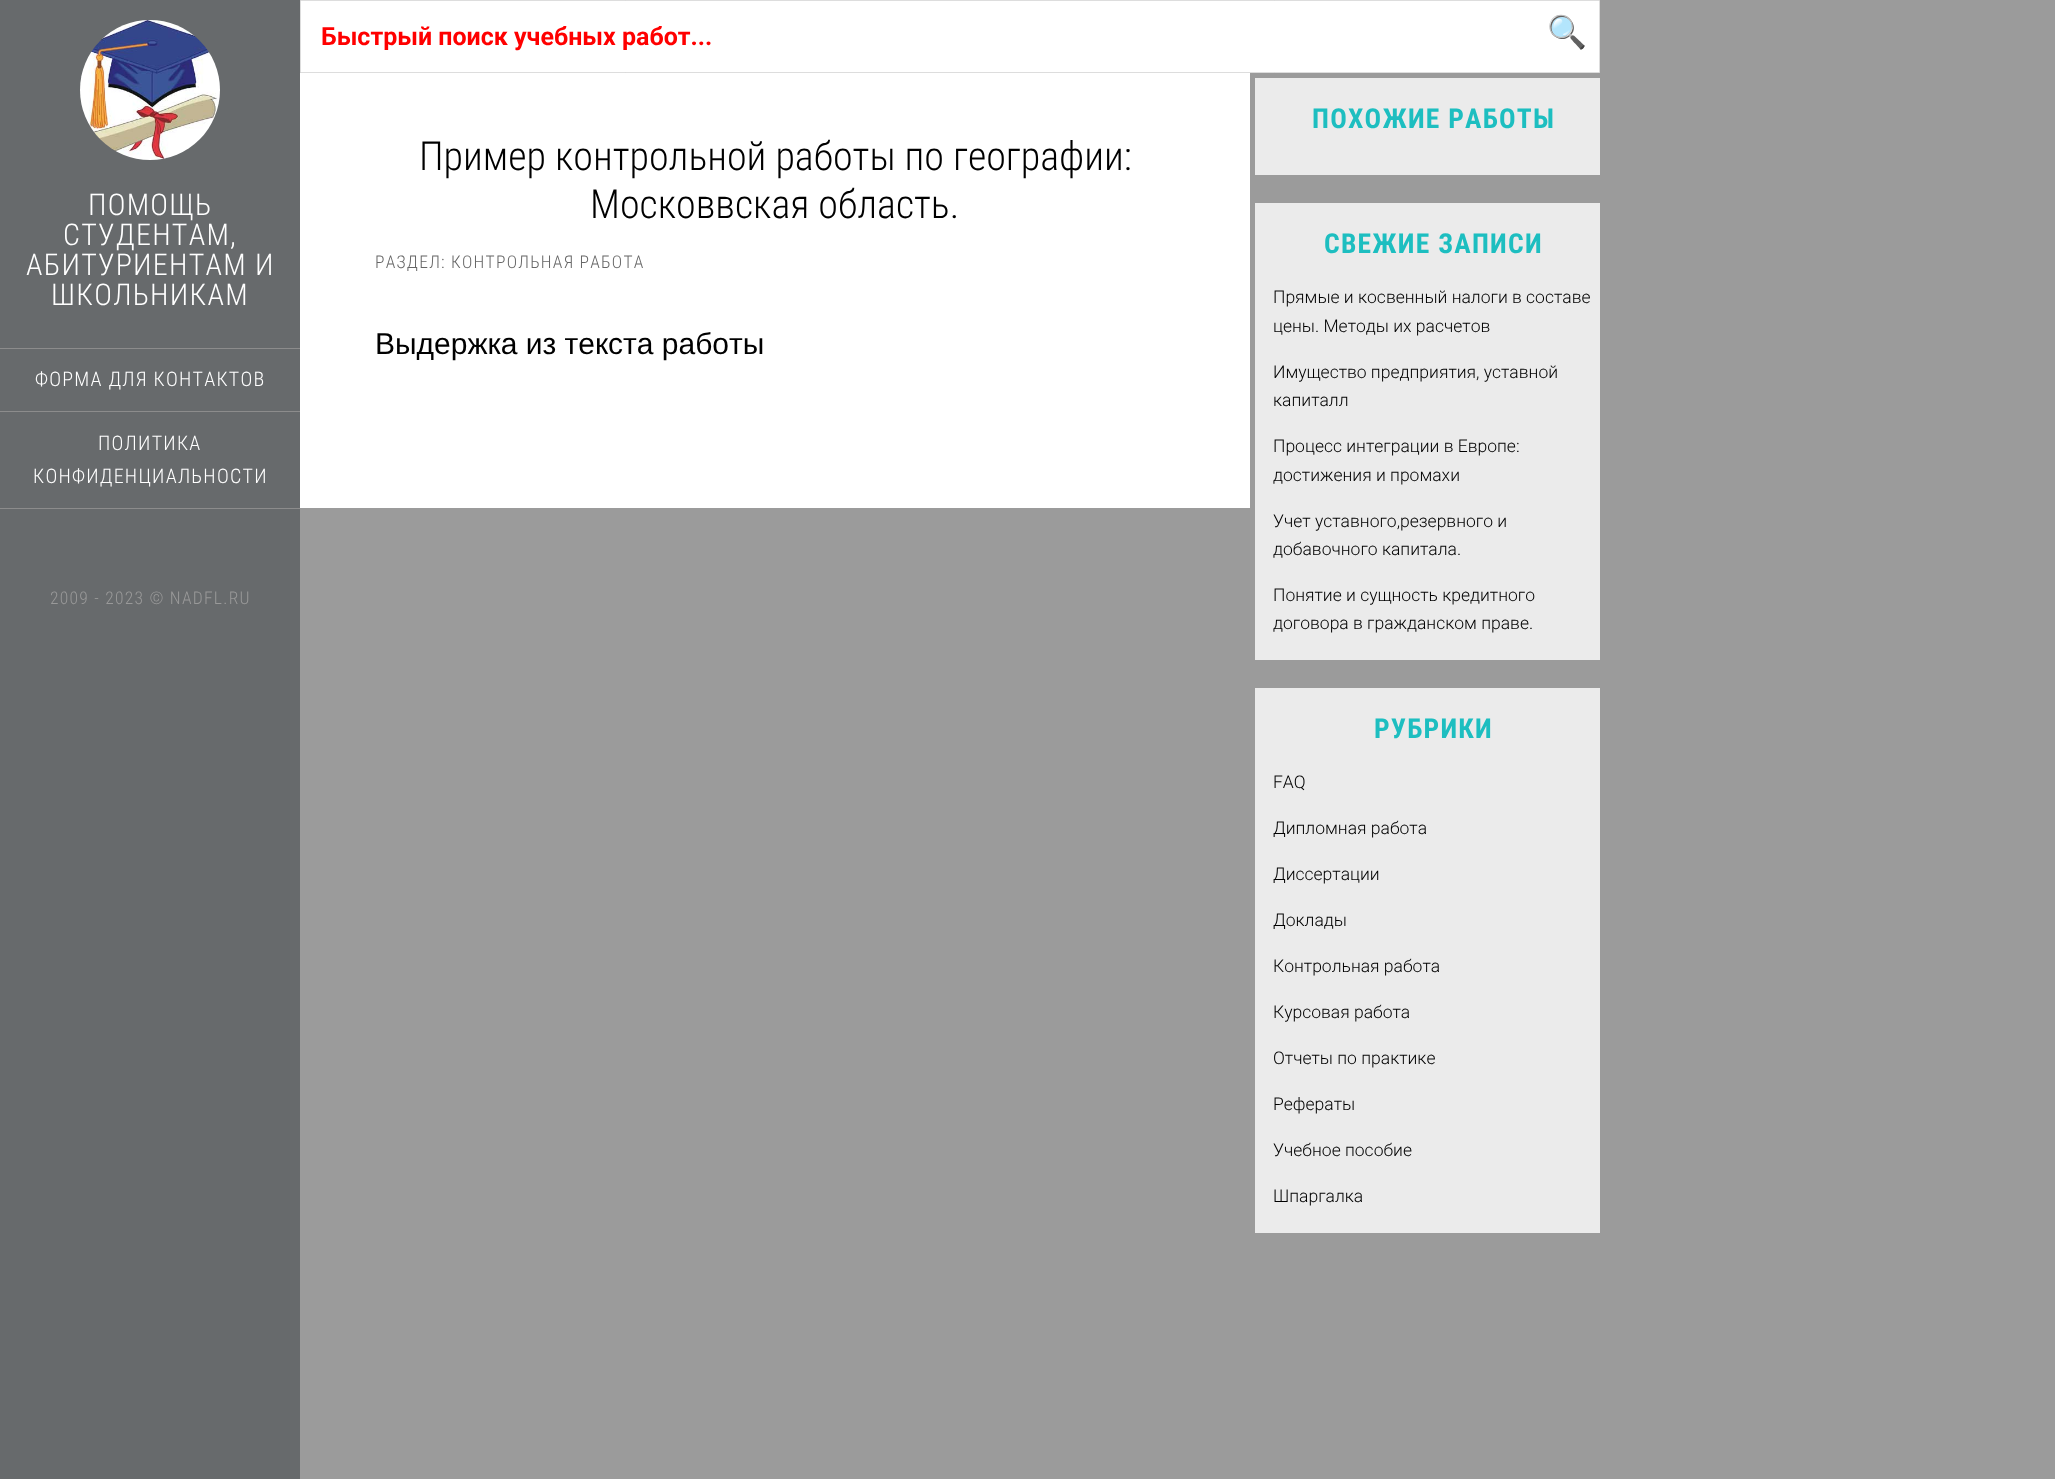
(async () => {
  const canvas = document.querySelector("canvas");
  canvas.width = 2055;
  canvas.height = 1479;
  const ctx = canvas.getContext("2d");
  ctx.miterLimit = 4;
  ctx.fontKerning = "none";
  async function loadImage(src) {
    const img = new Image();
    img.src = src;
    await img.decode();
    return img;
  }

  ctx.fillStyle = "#9b9b9b";
  ctx.fillRect(0, 0, 2055, 1479);
  ctx.fillStyle = "#676a6c";
  ctx.fillRect(0, 0, 300, 1479);
  ctx.drawImage(await loadImage("img/1.png"), 80, 20, 140, 140);
  for (const [x, y, w, h, color] of [
    [0, 348, 300, 1, "#8c8c8c"],
    [0, 411, 300, 1, "#8c8c8c"],
    [0, 508, 300, 1, "#8c8c8c"],
  ]) {
    ctx.fillStyle = color;
    ctx.fillRect(x, y, w, h);
  }
  ctx.fillStyle = "#ffffff";
  ctx.beginPath();
  ctx.rect(300.5, 0.5, 1299, 72);
  ctx.fill();
  ctx.strokeStyle = "#dddddd";
  ctx.stroke();
  for (const [x, y, w, h, color] of [
    [300, 73, 950, 435, "#ffffff"],
    [1255, 78, 345, 97, "#ebebeb"],
    [1255, 203, 345, 457, "#ebebeb"],
    [1255, 688, 345, 545, "#ebebeb"],
  ]) {
    ctx.fillStyle = color;
    ctx.fillRect(x, y, w, h);
  }
  ctx.letterSpacing = "1.25px";
  ctx.font = "300 30px Roboto Condensed";
  ctx.fillStyle = "#ffffff";
  for (const [text, x, y] of [
    ["ПОМОЩЬ", 88, 215],
    ["СТУДЕНТАМ,", 63, 245],
    ["АБИТУРИЕНТАМ И", 26, 275],
    ["ШКОЛЬНИКАМ", 51, 305],
  ]) {
    ctx.fillText(text, x, y);
  }
  ctx.font = "300 20px Roboto Condensed";
  for (const [text, x, y] of [
    ["ФОРМА ДЛЯ КОНТАКТОВ", 35, 386],
    ["ПОЛИТИКА", 98, 450],
    ["КОНФИДЕНЦИАЛЬНОСТИ", 33, 483],
  ]) {
    ctx.fillText(text, x, y);
  }
  ctx.font = "300 17.5px Roboto Condensed";
  ctx.fillStyle = "#999999";
  ctx.fillText("2009 - 2023 © NADFL.RU", 50, 604);
  ctx.letterSpacing = "0px";
  ctx.font = "bold 25px Roboto";
  ctx.fillStyle = "#ff0000";
  ctx.fillText("Быстрый поиск учебных работ...", 321, 45);
  ctx.font = "32px Noto Color Emoji";
  ctx.fillStyle = "#cccccc";
  ctx.fillText("🔍", 1547, 43);
  ctx.font = "300 40px Roboto Condensed";
  ctx.fillStyle = "#000000";
  ctx.fillText("Пример контрольной работы по географии:", 419, 170);
  ctx.fillText("Московвская область.", 590, 218);
  ctx.letterSpacing = "1.25px";
  ctx.font = "300 17.5px Roboto Condensed";
  ctx.fillStyle = "#666666";
  ctx.fillText("РАЗДЕЛ: КОНТРОЛЬНАЯ РАБОТА", 375, 268);
  ctx.letterSpacing = "0px";
  ctx.font = "30px Liberation Sans";
  ctx.fillStyle = "#000000";
  ctx.fillText("Выдержка из текста работы", 375, 354);
  ctx.letterSpacing = "1.25px";
  ctx.font = "bold 27.5px Roboto Condensed";
  ctx.fillStyle = "#1dbec0";
  ctx.fillText("ПОХОЖИЕ РАБОТЫ", 1312, 128);
  ctx.fillText("СВЕЖИЕ ЗАПИСИ", 1324, 253);
  ctx.letterSpacing = "0px";
  ctx.font = "300 17.5px Roboto";
  ctx.fillStyle = "#000000";
  for (const [text, x, y] of [
    ["Прямые и косвенный налоги в составе", 1273, 303],
    ["цены. Методы их расчетов", 1273, 332],
    ["Имущество предприятия, уставной", 1273, 378],
    ["капиталл", 1273, 406],
    ["Процесс интеграции в Европе:", 1273, 452],
    ["достижения и промахи", 1273, 481],
    ["Учет уставного,резервного и", 1273, 527],
    ["добавочного капитала.", 1273, 555],
    ["Понятие и сущность кредитного", 1273, 601],
    ["договора в гражданском праве.", 1273, 629],
  ]) {
    ctx.fillText(text, x, y);
  }
  ctx.letterSpacing = "1.25px";
  ctx.font = "bold 27.5px Roboto Condensed";
  ctx.fillStyle = "#1dbec0";
  ctx.fillText("РУБРИКИ", 1374, 738);
  ctx.letterSpacing = "0px";
  ctx.font = "300 17.5px Roboto";
  ctx.fillStyle = "#000000";
  for (const [text, x, y] of [
    ["FAQ", 1273, 788],
    ["Дипломная работа", 1273, 834],
    ["Диссертации", 1273, 880],
    ["Доклады", 1273, 926],
    ["Контрольная работа", 1273, 972],
    ["Курсовая работа", 1273, 1018],
    ["Отчеты по практике", 1273, 1064],
    ["Рефераты", 1273, 1110],
    ["Учебное пособие", 1273, 1156],
    ["Шпаргалка", 1273, 1202],
  ]) {
    ctx.fillText(text, x, y);
  }
})();
